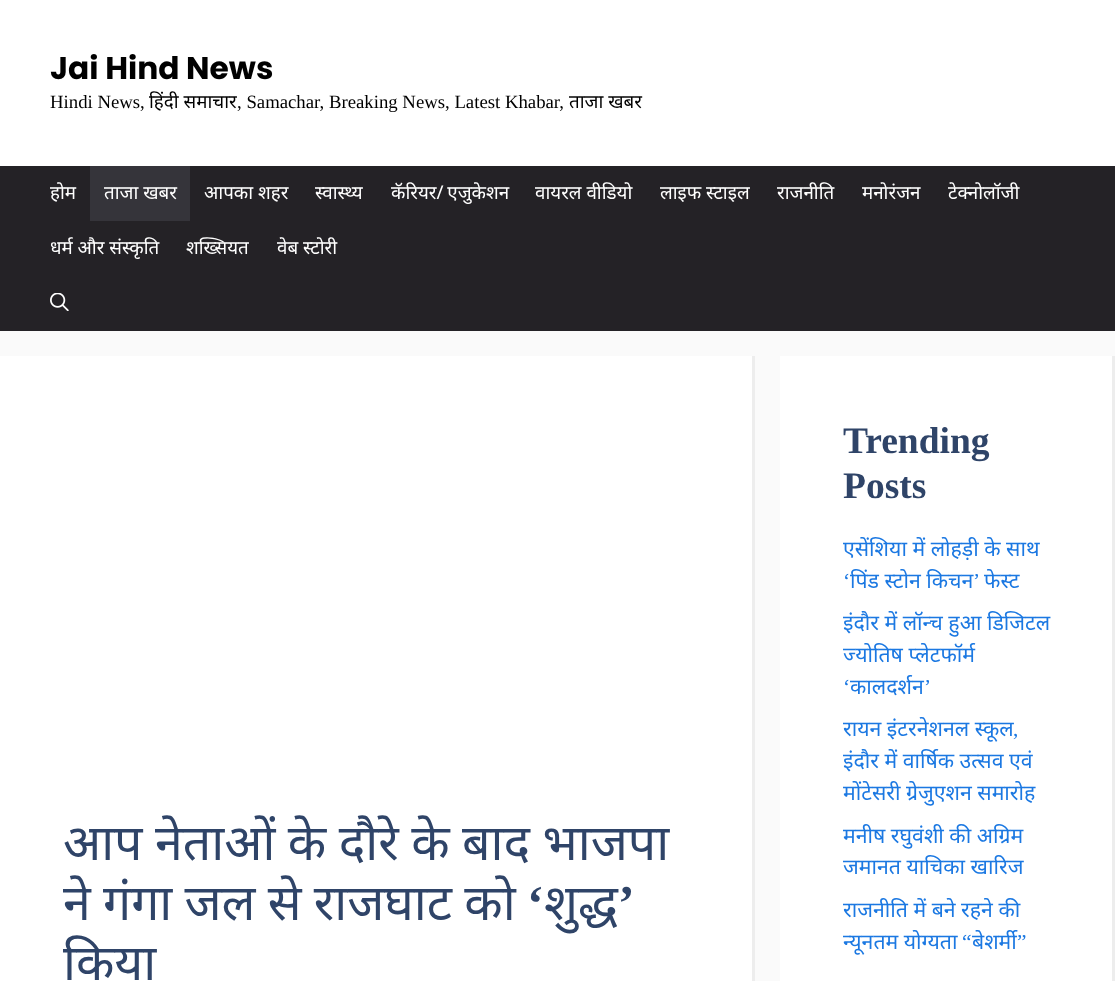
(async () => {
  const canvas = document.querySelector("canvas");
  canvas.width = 1115;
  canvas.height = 981;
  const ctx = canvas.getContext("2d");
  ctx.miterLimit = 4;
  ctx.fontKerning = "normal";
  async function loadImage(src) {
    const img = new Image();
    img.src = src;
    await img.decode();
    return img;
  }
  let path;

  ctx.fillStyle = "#fafafa";
  ctx.fillRect(0, 0, 1115, 981);
  for (const [x, y, w, h, color] of [
    [0, 0, 1115, 166, "#ffffff"],
    [0, 166, 1115, 165, "#242226"],
    [90, 166, 100, 55, "#35343a"],
  ]) {
    ctx.fillStyle = color;
    ctx.fillRect(x, y, w, h);
  }
  ctx.drawImage(await loadImage("img/1.png"), 50, 293, 19, 18);
  ctx.fillStyle = "#ffffff";
  ctx.fillRect(0, 356, 752, 625);
  ctx.fillStyle = "#ededed";
  path = new Path2D("M755 356V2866L752 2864V356Z");
  ctx.fill(path);
  ctx.fillStyle = "#ffffff";
  ctx.fillRect(780, 356, 332, 625);
  ctx.fillStyle = "#ededed";
  path = new Path2D("M1115 356V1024L1112 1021V356Z");
  ctx.fill(path);
  ctx.font = "bold 31.25px Poppins";
  ctx.fillStyle = "#000000";
  ctx.fillText("Jai Hind News", 50, 79);
  ctx.font = "18.75px Liberation Serif";
  ctx.fillText("Hindi News,", 50, 108);
  ctx.font = "18.75px Noto Sans";
  ctx.fillText("हिंदी समाचार", 149, 108);
  ctx.font = "18.75px Liberation Serif";
  ctx.fillText(", Samachar, Breaking News, Latest Khabar,", 237, 108);
  ctx.font = "18.75px Noto Sans";
  ctx.fillText("ताजा खबर", 569, 108);
  ctx.fillStyle = "#ffffff";
  for (const [text, x, y] of [
    ["होम", 50, 199],
    ["ताजा खबर", 104, 199],
    ["आपका शहर", 204, 199],
    ["स्वास्थ्य", 315, 199],
  ]) {
    ctx.fillText(text, x, y);
  }
  ctx.wordSpacing = "-1px";
  ctx.fillText("कॅरियर/ एजुकेशन", 391, 199);
  ctx.wordSpacing = "0px";
  for (const [text, x, y] of [
    ["वायरल वीडियो", 535, 199],
    ["लाइफ स्टाइल", 660, 199],
    ["राजनीति", 777, 199],
    ["मनोरंजन", 862, 199],
    ["टेक्नोलॉजी", 948, 199],
    ["धर्म और संस्कृति", 50, 254],
    ["शख्सियत", 186, 254],
    ["वेब स्टोरी", 277, 254],
  ]) {
    ctx.fillText(text, x, y);
  }
  ctx.wordSpacing = "-0.5px";
  ctx.font = "50px Noto Sans";
  ctx.fillStyle = "#2f4468";
  ctx.fillText("आप नेताओं के दौरे के बाद भाजपा", 63, 860);
  ctx.wordSpacing = "-0.75px";
  ctx.fillText("ने गंगा जल से राजघाट को", 63, 920);
  ctx.wordSpacing = "0px";
  ctx.font = "bold 50px Liberation Serif";
  ctx.fillText("‘", 527, 920);
  ctx.fillText("’", 618, 920);
  ctx.font = "50px Noto Sans";
  ctx.fillText("शुद्ध", 544, 920);
  ctx.fillText("किया", 63, 980);
  ctx.font = "bold 37.5px Liberation Serif";
  ctx.fillText("Trending", 843, 453);
  ctx.fillText("Posts", 843, 498);
  ctx.font = "21.25px Noto Sans";
  ctx.fillStyle = "#1b78e2";
  ctx.fillText("एसेंशिया में लोहड़ी के साथ", 843, 556);
  ctx.font = "21.25px Liberation Serif";
  ctx.fillText("‘", 843, 588);
  ctx.font = "21.25px Noto Sans";
  ctx.fillText("पिंड स्टोन किचन", 850, 588);
  ctx.font = "21.25px Liberation Serif";
  ctx.fillText("’", 973, 588);
  ctx.font = "21.25px Noto Sans";
  for (const [text, x, y] of [
    ["फेस्ट", 984, 588],
    ["इंदौर में लॉन्च हुआ डिजिटल", 843, 630],
    ["ज्योतिष प्लेटफॉर्म", 843, 662],
  ]) {
    ctx.fillText(text, x, y);
  }
  ctx.font = "21.25px Liberation Serif";
  ctx.fillText("‘", 843, 694);
  ctx.font = "21.25px Noto Sans";
  ctx.fillText("कालदर्शन", 850, 694);
  ctx.font = "21.25px Liberation Serif";
  ctx.fillText("’", 924, 694);
  ctx.font = "21.25px Noto Sans";
  ctx.fillText("रायन इंटरनेशनल स्कूल", 843, 736);
  ctx.font = "21.25px Liberation Serif";
  ctx.fillText(",", 1013, 736);
  ctx.font = "21.25px Noto Sans";
  for (const [text, x, y] of [
    ["इंदौर में वार्षिक उत्सव एवं", 843, 768],
    ["मोंटेसरी ग्रेजुएशन समारोह", 843, 800],
    ["मनीष रघुवंशी की अग्रिम", 843, 843],
    ["जमानत याचिका खारिज", 843, 874],
    ["राजनीति में बने रहने की", 843, 917],
    ["न्यूनतम योग्यता", 843, 949],
  ]) {
    ctx.fillText(text, x, y);
  }
  ctx.font = "21.25px Liberation Serif";
  ctx.fillText("“", 962, 949);
  ctx.font = "21.25px Noto Sans";
  ctx.fillText("बेशर्मी", 972, 949);
  ctx.font = "21.25px Liberation Serif";
  ctx.fillText("”", 1017, 949);
})();
